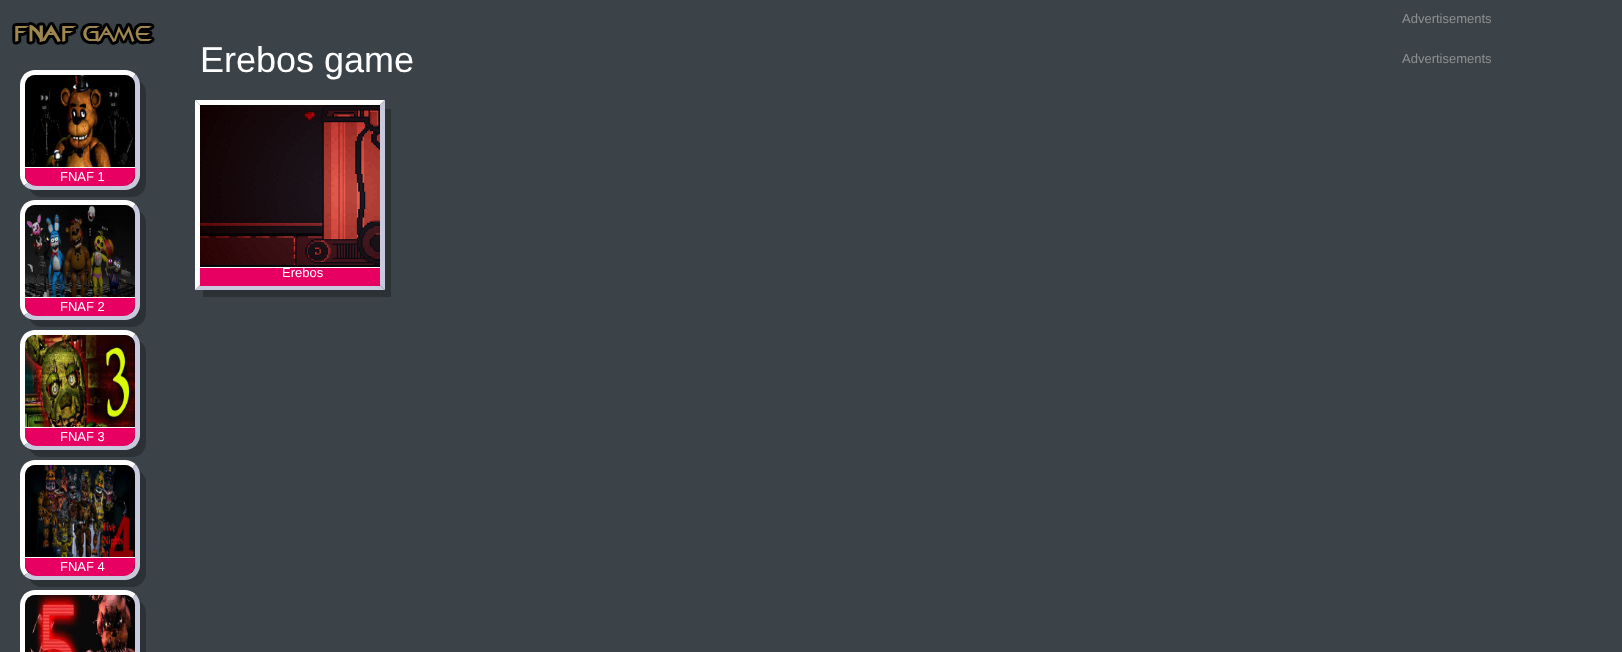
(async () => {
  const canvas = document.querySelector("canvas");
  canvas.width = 1622;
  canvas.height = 652;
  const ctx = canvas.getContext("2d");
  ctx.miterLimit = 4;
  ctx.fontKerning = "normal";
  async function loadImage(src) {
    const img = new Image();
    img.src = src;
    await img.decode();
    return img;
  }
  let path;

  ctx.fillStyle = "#3b4248";
  ctx.fillRect(0, 0, 1622, 652);
  ctx.drawImage(await loadImage("img/1.png"), 12, 21, 143, 24);
  ctx.fillStyle = "rgba(0, 0, 0, 0.25)";
  ctx.filter = "blur(0.5px)";
  ctx.beginPath();
  ctx.roundRect(28, 79, 118, 118, 14);
  ctx.fill();
  ctx.filter = "none";
  path = new Path2D("M134 76C136 78.5 137.5 81.5 137.5 85V175C137.5 178.5 136 181.5 134 184C131.5 186 128.5 187.5 125 187.5H35C31.5 187.5 28.5 186 26 184");
  ctx.strokeStyle = "#c9c9dd";
  ctx.lineWidth = 5;
  ctx.stroke(path);
  path = new Path2D("M26 184C24 181.5 22.5 178.5 22.5 175V85C22.5 81.5 24 78.5 26 76C28.5 74 31.5 72.5 35 72.5H125C128.5 72.5 131.5 74 134 76");
  ctx.strokeStyle = "#ffffff";
  ctx.stroke(path);
  ctx.drawImage(await loadImage("img/2.png"), 25, 75, 110, 110);
  ctx.fillStyle = "#e70062";
  ctx.beginPath();
  ctx.roundRect(25, 167, 110, 19, [0, 0, 12, 12]);
  ctx.fill();
  ctx.fillStyle = "#ffffff";
  ctx.fillRect(25, 167, 110, 1);
  ctx.fillStyle = "rgba(0, 0, 0, 0.25)";
  ctx.filter = "blur(0.5px)";
  ctx.beginPath();
  ctx.roundRect(28, 209, 118, 118, 14);
  ctx.fill();
  ctx.filter = "none";
  path = new Path2D("M134 206C136 208.5 137.5 211.5 137.5 215V305C137.5 308.5 136 311.5 134 314C131.5 316 128.5 317.5 125 317.5H35C31.5 317.5 28.5 316 26 314");
  ctx.strokeStyle = "#c9c9dd";
  ctx.stroke(path);
  path = new Path2D("M26 314C24 311.5 22.5 308.5 22.5 305V215C22.5 211.5 24 208.5 26 206C28.5 204 31.5 202.5 35 202.5H125C128.5 202.5 131.5 204 134 206");
  ctx.strokeStyle = "#ffffff";
  ctx.stroke(path);
  ctx.drawImage(await loadImage("img/3.png"), 25, 205, 110, 110);
  ctx.fillStyle = "#e70062";
  ctx.beginPath();
  ctx.roundRect(25, 297, 110, 19, [0, 0, 12, 12]);
  ctx.fill();
  ctx.fillStyle = "#ffffff";
  ctx.fillRect(25, 297, 110, 1);
  ctx.fillStyle = "rgba(0, 0, 0, 0.25)";
  ctx.filter = "blur(0.5px)";
  ctx.beginPath();
  ctx.roundRect(28, 339, 118, 118, 14);
  ctx.fill();
  ctx.filter = "none";
  path = new Path2D("M134 336C136 338.5 137.5 341.5 137.5 345V435C137.5 438.5 136 441.5 134 444C131.5 446 128.5 447.5 125 447.5H35C31.5 447.5 28.5 446 26 444");
  ctx.strokeStyle = "#c9c9dd";
  ctx.stroke(path);
  path = new Path2D("M26 444C24 441.5 22.5 438.5 22.5 435V345C22.5 341.5 24 338.5 26 336C28.5 334 31.5 332.5 35 332.5H125C128.5 332.5 131.5 334 134 336");
  ctx.strokeStyle = "#ffffff";
  ctx.stroke(path);
  ctx.drawImage(await loadImage("img/4.png"), 25, 335, 110, 110);
  ctx.fillStyle = "#e70062";
  ctx.beginPath();
  ctx.roundRect(25, 427, 110, 19, [0, 0, 12, 12]);
  ctx.fill();
  ctx.fillStyle = "#ffffff";
  ctx.fillRect(25, 427, 110, 1);
  ctx.fillStyle = "rgba(0, 0, 0, 0.25)";
  ctx.filter = "blur(0.5px)";
  ctx.beginPath();
  ctx.roundRect(28, 469, 118, 118, 14);
  ctx.fill();
  ctx.filter = "none";
  path = new Path2D("M134 466C136 468.5 137.5 471.5 137.5 475V565C137.5 568.5 136 571.5 134 574C131.5 576 128.5 577.5 125 577.5H35C31.5 577.5 28.5 576 26 574");
  ctx.strokeStyle = "#c9c9dd";
  ctx.stroke(path);
  path = new Path2D("M26 574C24 571.5 22.5 568.5 22.5 565V475C22.5 471.5 24 468.5 26 466C28.5 464 31.5 462.5 35 462.5H125C128.5 462.5 131.5 464 134 466");
  ctx.strokeStyle = "#ffffff";
  ctx.stroke(path);
  ctx.drawImage(await loadImage("img/5.png"), 25, 465, 110, 110);
  ctx.fillStyle = "#e70062";
  ctx.beginPath();
  ctx.roundRect(25, 557, 110, 19, [0, 0, 12, 12]);
  ctx.fill();
  ctx.fillStyle = "#ffffff";
  ctx.fillRect(25, 557, 110, 1);
  ctx.fillStyle = "rgba(0, 0, 0, 0.25)";
  ctx.filter = "blur(0.5px)";
  ctx.beginPath();
  ctx.roundRect(28, 599, 118, 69, 14);
  ctx.fill();
  ctx.filter = "none";
  path = new Path2D("M134 596C136 598.5 137.5 601.5 137.5 605V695C137.5 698.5 136 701.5 134 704C131.5 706 128.5 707.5 125 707.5H35C31.5 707.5 28.5 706 26 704");
  ctx.strokeStyle = "#c9c9dd";
  ctx.stroke(path);
  path = new Path2D("M26 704C24 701.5 22.5 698.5 22.5 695V605C22.5 601.5 24 598.5 26 596C28.5 594 31.5 592.5 35 592.5H125C128.5 592.5 131.5 594 134 596");
  ctx.strokeStyle = "#ffffff";
  ctx.stroke(path);
  ctx.drawImage(await loadImage("img/6.png"), 25, 595, 110, 57);
  ctx.fillStyle = "#ffffff";
  path = new Path2D("M195 100H385L380 105H200Z");
  ctx.fill(path);
  ctx.fillStyle = "rgba(0, 0, 0, 0.25)";
  ctx.filter = "blur(0.5px)";
  ctx.beginPath();
  ctx.rect(203, 109, 188, 188);
  ctx.fill();
  ctx.filter = "none";
  ctx.fillStyle = "#c9c9dd";
  path = new Path2D("M385 100V290L380 285V105Z");
  ctx.fill(path);
  path = new Path2D("M385 290H195L200 285H380Z");
  ctx.fill(path);
  ctx.fillStyle = "#ffffff";
  path = new Path2D("M195 290V100L200 105V285Z");
  ctx.fill(path);
  ctx.drawImage(await loadImage("img/7.png"), 200, 105, 180, 162);
  ctx.fillStyle = "#e70062";
  ctx.fillRect(200, 268, 180, 18);
  ctx.fillStyle = "#ffffff";
  ctx.fillRect(200, 267, 180, 1);
  ctx.font = "13px Liberation Sans";
  ctx.fillStyle = "#909090";
  ctx.fillText("Advertisements", 1402, 23);
  ctx.fillText("Advertisements", 1402, 63);
  ctx.fillStyle = "#ffffff";
  for (const [text, x, y] of [
    ["FNAF 1", 60, 181],
    ["FNAF 2", 60, 311],
    ["FNAF 3", 60, 441],
    ["FNAF 4", 60, 571],
  ]) {
    ctx.fillText(text, x, y);
  }
  ctx.font = "36px Liberation Sans";
  ctx.fillText("Erebos game", 200, 72);
  ctx.font = "13px Liberation Sans";
  ctx.fillText("Erebos", 282, 277);
})();
